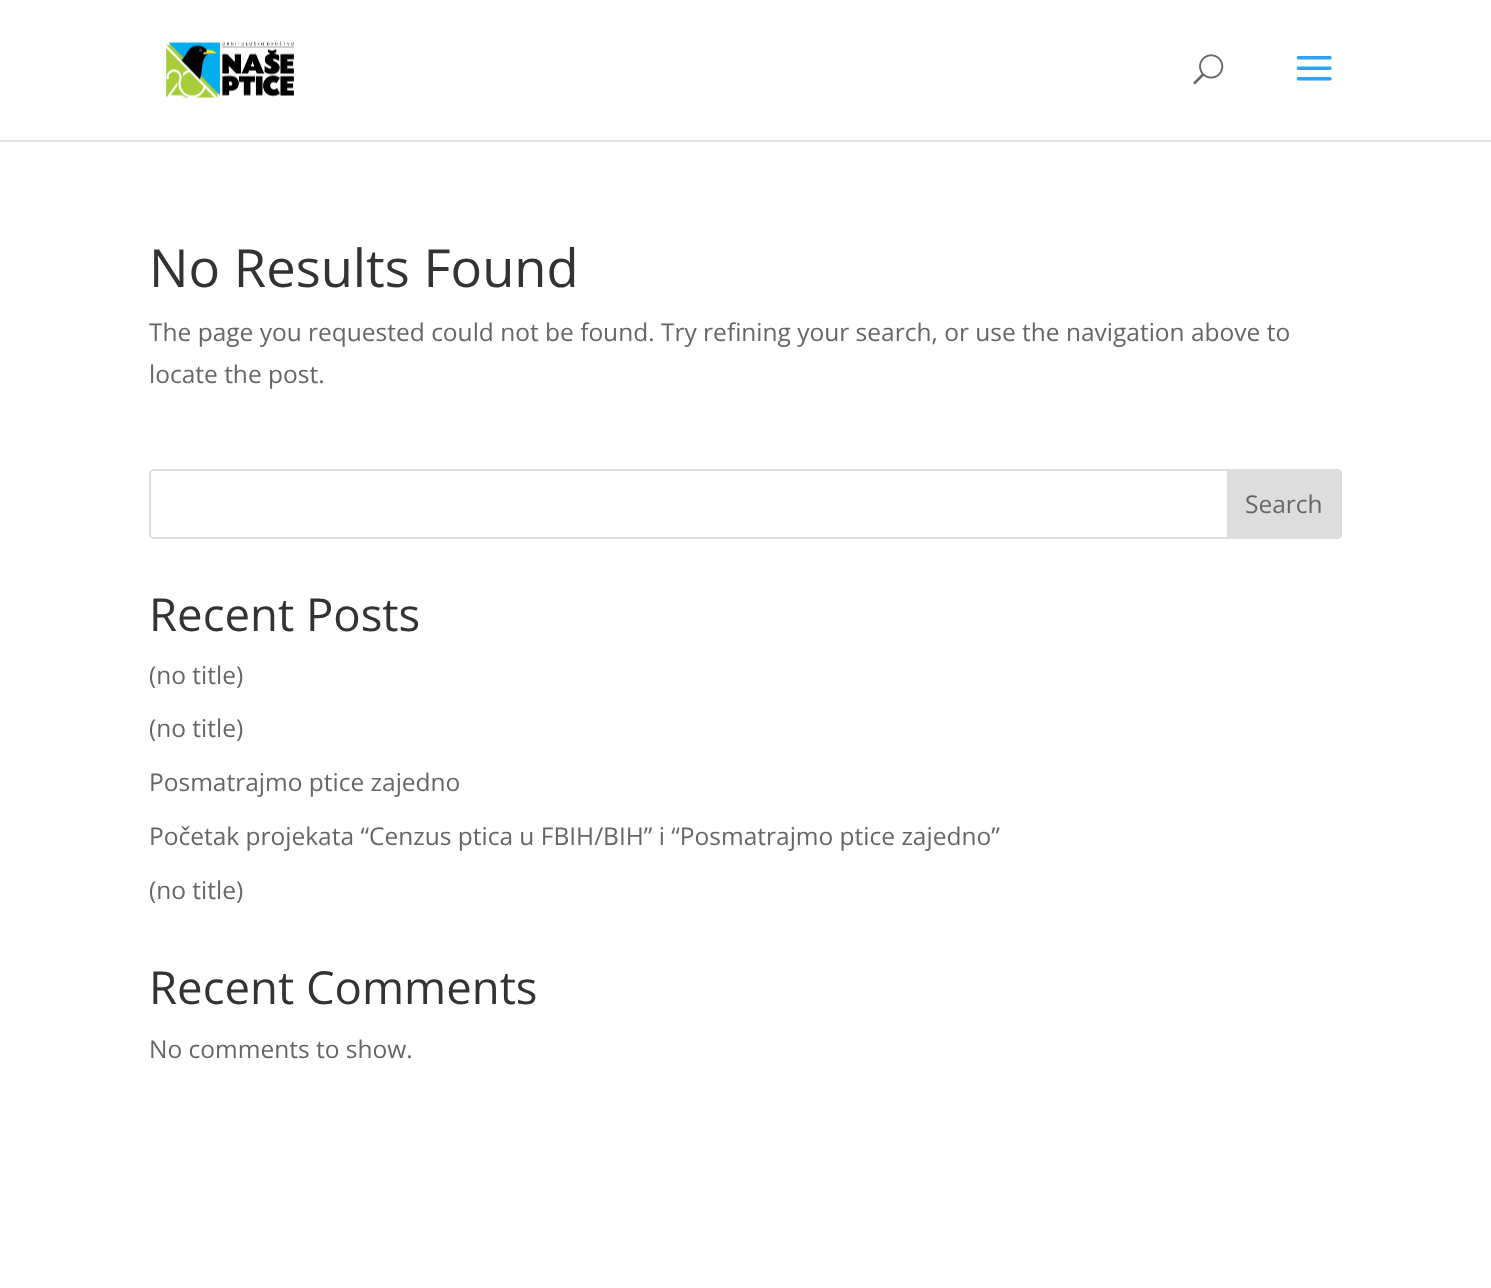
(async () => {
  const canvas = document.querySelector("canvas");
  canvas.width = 1491;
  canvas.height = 1288;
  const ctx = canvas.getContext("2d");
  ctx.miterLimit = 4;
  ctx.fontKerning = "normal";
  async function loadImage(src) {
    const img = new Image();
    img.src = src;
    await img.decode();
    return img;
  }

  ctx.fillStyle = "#ffffff";
  ctx.fillRect(0, 0, 1491, 1288);
  ctx.fillStyle = "#e6e6e6";
  ctx.fillRect(0, 140, 1491, 2);
  ctx.drawImage(await loadImage("img/1.png"), 166, 41, 128, 57);
  ctx.drawImage(await loadImage("img/2.png"), 1193, 54, 31, 31);
  ctx.drawImage(await loadImage("img/3.png"), 1296, 56, 36, 25);
  ctx.beginPath();
  ctx.roundRect(150, 470, 1191, 68, 4);
  ctx.strokeStyle = "#dddddd";
  ctx.lineWidth = 2;
  ctx.stroke();
  ctx.fillStyle = "#dddddd";
  ctx.beginPath();
  ctx.roundRect(1228, 470, 113, 68, [0, 4, 4, 0]);
  ctx.fill();
  ctx.stroke();
  ctx.font = "52.5px Open Sans";
  ctx.fillStyle = "#333333";
  ctx.fillText("No Results Found", 149, 287);
  ctx.font = "24.5px Open Sans";
  ctx.fillStyle = "#666666";
  for (const [text, x, y] of [
    ["The page you requested could not be found. Try refining your search, or use the navigation above to", 149, 341],
    ["locate the post.", 149, 383],
    ["Search", 1245, 513],
  ]) {
    ctx.fillText(text, x, y);
  }
  ctx.font = "45.5px Open Sans";
  ctx.fillStyle = "#333333";
  ctx.fillText("Recent Posts", 149, 631);
  ctx.font = "24.5px Open Sans";
  ctx.fillStyle = "#666666";
  for (const [text, x, y] of [
    ["(no title)", 149, 684],
    ["(no title)", 149, 737],
    ["Posmatrajmo ptice zajedno", 149, 791],
    ["Početak projekata “Cenzus ptica u FBIH/BIH” i “Posmatrajmo ptice zajedno”", 149, 845],
    ["(no title)", 149, 899],
  ]) {
    ctx.fillText(text, x, y);
  }
  ctx.font = "45.5px Open Sans";
  ctx.fillStyle = "#333333";
  ctx.fillText("Recent Comments", 149, 1004);
  ctx.font = "24.5px Open Sans";
  ctx.fillStyle = "#666666";
  ctx.fillText("No comments to show.", 149, 1058);
})();
